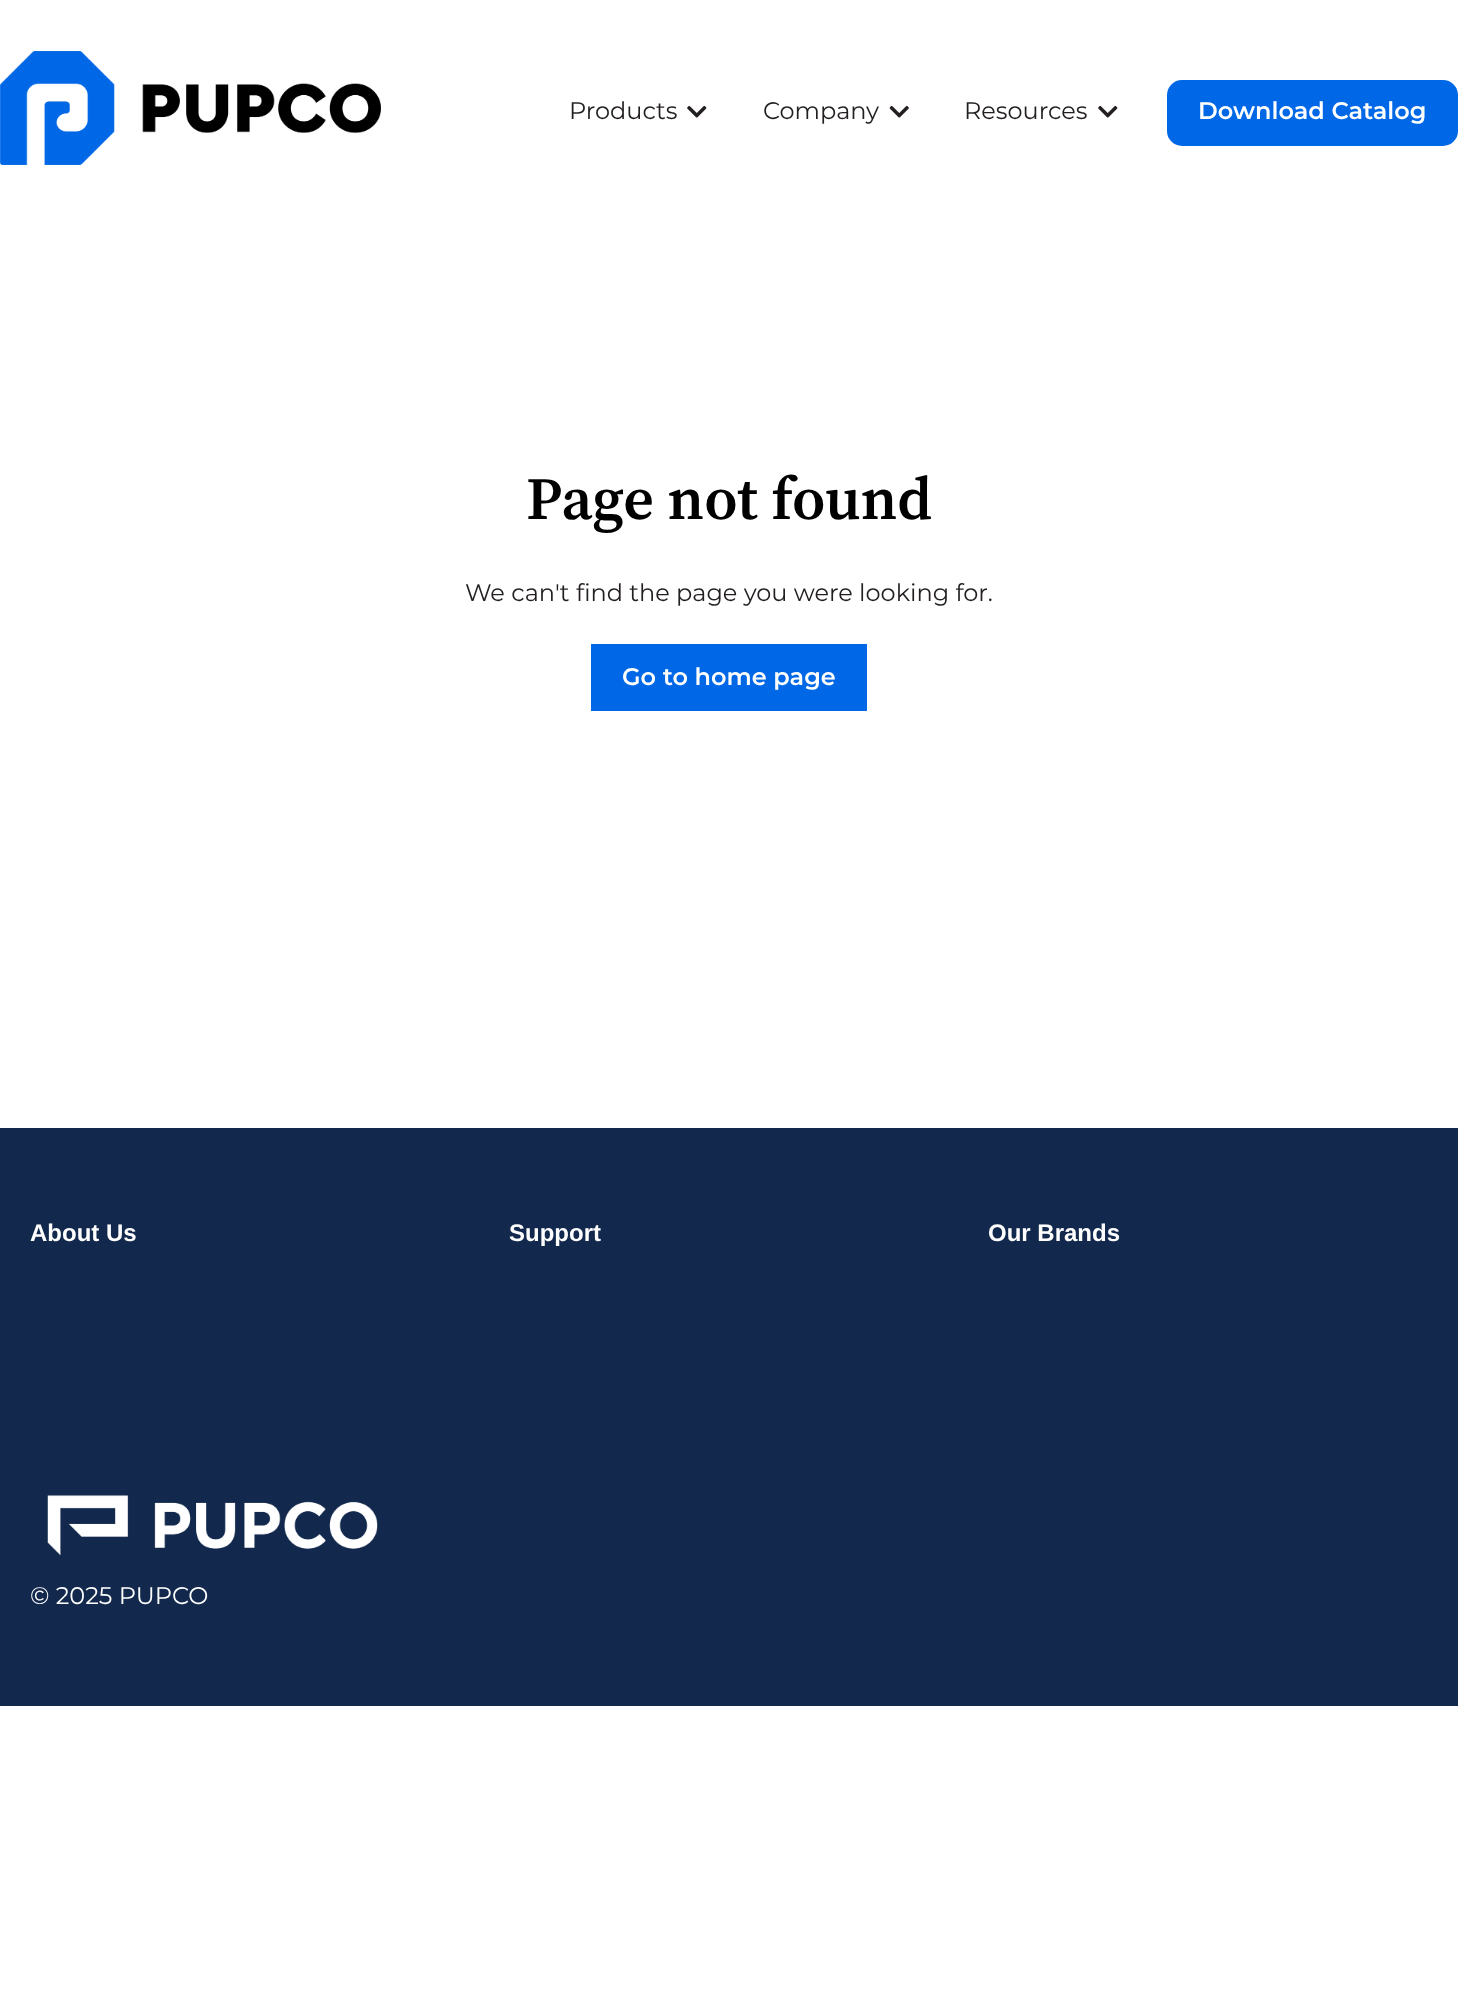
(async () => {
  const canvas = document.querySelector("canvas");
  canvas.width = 1458;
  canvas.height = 2009;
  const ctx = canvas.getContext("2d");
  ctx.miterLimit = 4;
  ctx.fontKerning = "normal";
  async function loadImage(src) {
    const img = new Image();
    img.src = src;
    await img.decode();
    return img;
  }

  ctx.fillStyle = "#ffffff";
  ctx.fillRect(0, 0, 1458, 2009);
  ctx.drawImage(await loadImage("img/1.png"), 0, 51, 381, 114);
  ctx.drawImage(await loadImage("img/2.png"), 687, 105, 20, 13);
  ctx.drawImage(await loadImage("img/3.png"), 889, 105, 20, 13);
  ctx.drawImage(await loadImage("img/2.png"), 1098, 105, 20, 13);
  ctx.fillStyle = "#0068e7";
  ctx.beginPath();
  ctx.roundRect(1168, 81, 289, 64, 14);
  ctx.fill();
  ctx.strokeStyle = "#0068e7";
  ctx.lineWidth = 2;
  ctx.stroke();
  ctx.fillRect(591, 644, 276, 67);
  ctx.fillStyle = "#12284c";
  ctx.fillRect(0, 1128, 1458, 578);
  ctx.drawImage(await loadImage("img/4.png"), 47, 1495, 331, 61);
  ctx.font = "24px Montserrat";
  ctx.fillStyle = "#231f20";
  for (const [text, x, y] of [
    ["Products", 569, 119],
    ["Company", 763, 119],
    ["Resources", 964, 119],
  ]) {
    ctx.fillText(text, x, y);
  }
  ctx.font = "600 24px Montserrat";
  ctx.fillStyle = "#ffffff";
  ctx.fillText("Download Catalog", 1198, 119);
  ctx.font = "600 60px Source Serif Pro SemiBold";
  ctx.fillStyle = "#000000";
  ctx.fillText("Page not found", 526, 519);
  ctx.font = "24px Montserrat";
  ctx.fillStyle = "#231f20";
  ctx.fillText("We can't find the page you were looking for.", 465, 601);
  ctx.font = "600 24px Montserrat";
  ctx.fillStyle = "#ffffff";
  ctx.fillText("Go to home page", 622, 685);
  ctx.font = "bold 24px Liberation Sans";
  ctx.fillText("About Us", 30, 1241);
  ctx.font = "24px Montserrat";
  ctx.fillText("© 2025 PUPCO", 30, 1604);
  ctx.font = "bold 24px Liberation Sans";
  ctx.fillText("Support", 509, 1241);
  ctx.fillText("Our Brands", 988, 1241);
})();
